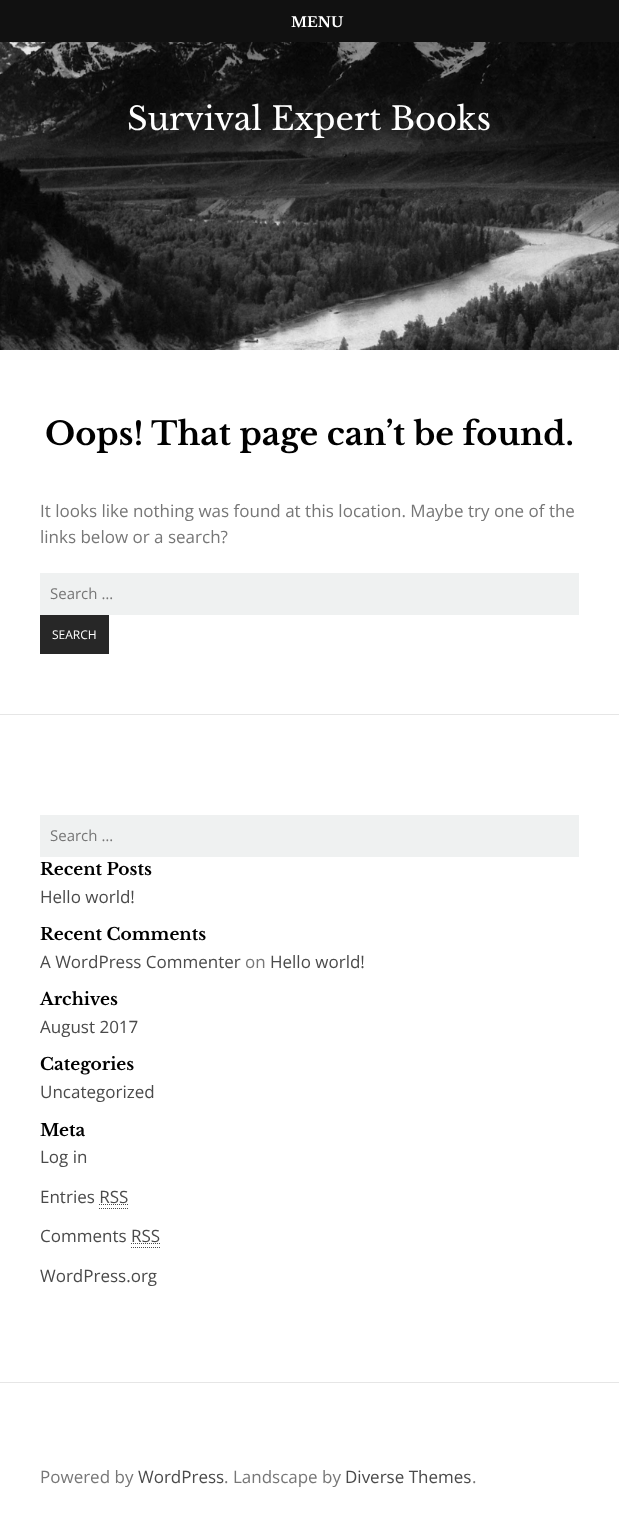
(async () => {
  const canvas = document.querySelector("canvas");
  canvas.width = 619;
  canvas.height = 1525;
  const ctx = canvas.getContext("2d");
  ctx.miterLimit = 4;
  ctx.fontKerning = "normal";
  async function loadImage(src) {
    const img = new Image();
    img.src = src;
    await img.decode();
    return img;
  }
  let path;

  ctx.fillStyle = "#ffffff";
  ctx.fillRect(0, 0, 619, 1525);
  ctx.drawImage(await loadImage("img/1.png"), 0, 42, 619, 308);
  for (const [x, y, w, h, color] of [
    [0, 0, 619, 42, "#111111"],
    [40, 573, 539, 42, "#eff1f1"],
    [40, 615, 69, 39, "#272727"],
    [0, 714, 619, 1, "#e6e6e6"],
    [0, 1382, 619, 1, "#e6e6e6"],
    [40, 815, 539, 42, "#eff1f1"],
  ]) {
    ctx.fillStyle = color;
    ctx.fillRect(x, y, w, h);
  }
  path = new Path2D("M99 1208.5H128M99 1204.5H128.5");
  ctx.strokeStyle = "#4a4a4a";
  ctx.setLineDash([1, 1]);
  ctx.stroke(path);
  path = new Path2D("M131 1247.5H160M131 1243.5H160");
  ctx.stroke(path);
  ctx.font = "bold 14px Libre Baskerville";
  ctx.fillStyle = "#ffffff";
  ctx.fillText("MENU", 291, 27);
  ctx.font = "32px Libre Baskerville";
  ctx.fillText("Survival Expert Books", 127, 130);
  ctx.font = "bold 32px Libre Baskerville";
  ctx.fillStyle = "#000000";
  ctx.fillText("Oops! That page can’t be found.", 45, 445);
  ctx.font = "17px Open Sans";
  ctx.fillStyle = "#777777";
  ctx.fillText("It looks like nothing was found at this location. Maybe try one of the", 40, 517);
  ctx.fillText("links below or a search?", 40, 543);
  ctx.font = "15px Open Sans";
  ctx.fillText("Search …", 50, 599);
  ctx.font = "12px Open Sans";
  ctx.fillStyle = "#ffffff";
  ctx.fillText("SEARCH", 52, 639);
  ctx.font = "15px Open Sans";
  ctx.fillStyle = "#777777";
  ctx.fillText("Search …", 50, 841);
  ctx.font = "bold 17px Libre Baskerville";
  ctx.fillStyle = "#000000";
  ctx.fillText("Recent Posts", 40, 875);
  ctx.font = "17px Open Sans";
  ctx.fillStyle = "#4a4a4a";
  ctx.fillText("Hello world!", 40, 903);
  ctx.font = "bold 17px Libre Baskerville";
  ctx.fillStyle = "#000000";
  ctx.fillText("Recent Comments", 40, 940);
  ctx.font = "17px Open Sans";
  ctx.fillStyle = "#4a4a4a";
  ctx.fillText("A WordPress Commenter", 40, 968);
  ctx.fillStyle = "#777777";
  ctx.fillText("on", 245, 968);
  ctx.fillStyle = "#4a4a4a";
  ctx.fillText("Hello world!", 270, 968);
  ctx.font = "bold 17px Libre Baskerville";
  ctx.fillStyle = "#000000";
  ctx.fillText("Archives", 40, 1005);
  ctx.font = "17px Open Sans";
  ctx.fillStyle = "#4a4a4a";
  ctx.fillText("August 2017", 40, 1033);
  ctx.font = "bold 17px Libre Baskerville";
  ctx.fillStyle = "#000000";
  ctx.fillText("Categories", 40, 1070);
  ctx.font = "17px Open Sans";
  ctx.fillStyle = "#4a4a4a";
  ctx.fillText("Uncategorized", 40, 1098);
  ctx.font = "bold 17px Libre Baskerville";
  ctx.fillStyle = "#000000";
  ctx.fillText("Meta", 40, 1136);
  ctx.font = "17px Open Sans";
  ctx.fillStyle = "#4a4a4a";
  for (const [text, x, y] of [
    ["Log in", 40, 1163],
    ["Entries RSS", 40, 1203],
    ["Comments RSS", 40, 1242],
    ["WordPress.org", 40, 1282],
  ]) {
    ctx.fillText(text, x, y);
  }
  ctx.fillStyle = "#777777";
  ctx.fillText("Powered by", 40, 1483);
  ctx.fillStyle = "#4a4a4a";
  ctx.fillText("WordPress", 138, 1483);
  ctx.fillStyle = "#777777";
  ctx.fillText(". Landscape by", 224, 1483);
  ctx.fillStyle = "#4a4a4a";
  ctx.fillText("Diverse Themes", 345, 1483);
  ctx.fillStyle = "#777777";
  ctx.fillText(".", 472, 1483);
})();
